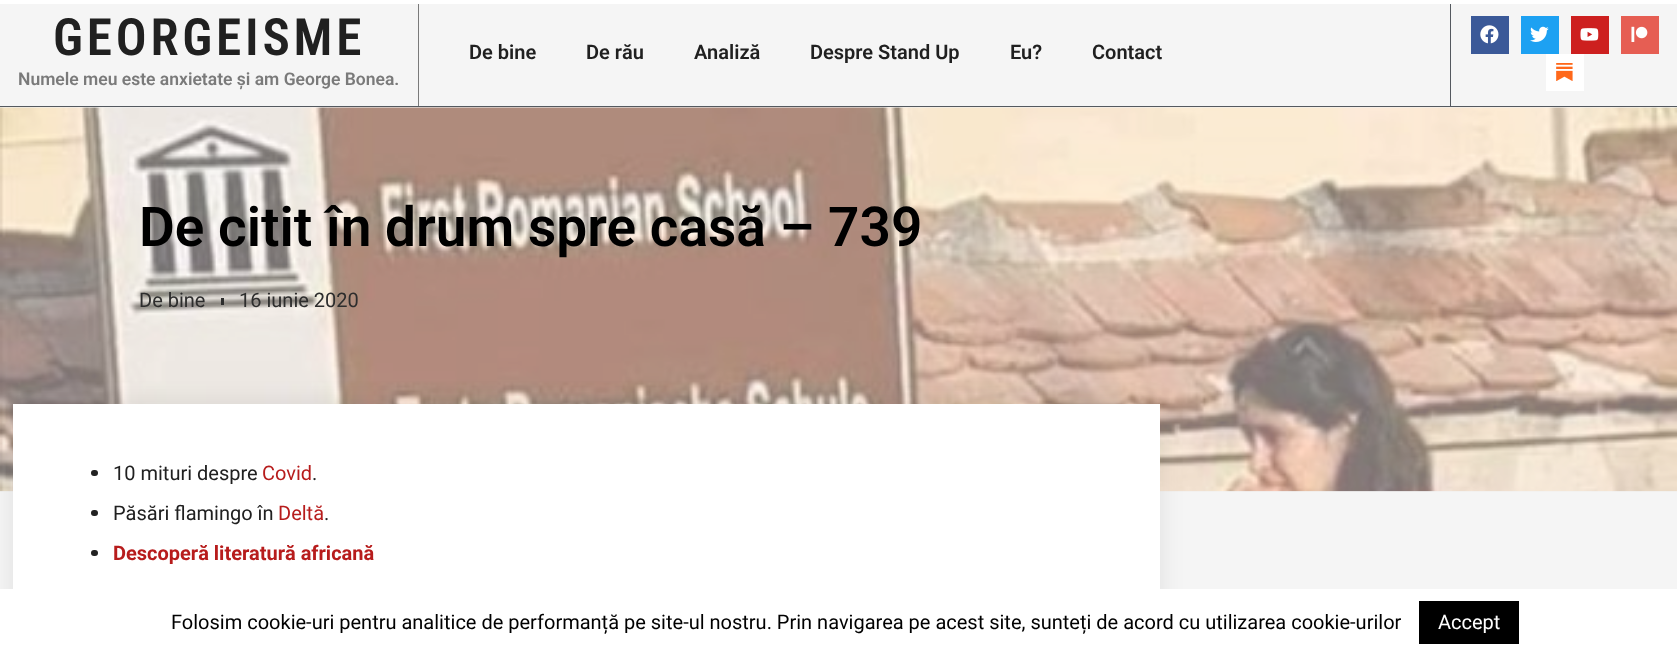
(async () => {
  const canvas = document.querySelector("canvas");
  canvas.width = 1677;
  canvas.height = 662;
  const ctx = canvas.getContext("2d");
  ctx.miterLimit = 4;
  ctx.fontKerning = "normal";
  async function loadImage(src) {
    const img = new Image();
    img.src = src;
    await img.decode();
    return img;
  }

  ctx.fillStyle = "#f5f5f5";
  ctx.fillRect(0, 0, 1677, 662);
  for (const [x, y, w, h, color] of [
    [418, 0, 1, 106, "#7a7a7a"],
    [1450, 0, 1, 106, "#54595f"],
    [0, 0, 1677, 4, "#ffffff"],
    [0, 106, 1677, 1, "#54595f"],
    [1471, 16, 38, 38, "#3b5998"],
  ]) {
    ctx.fillStyle = color;
    ctx.fillRect(x, y, w, h);
  }
  ctx.drawImage(await loadImage("img/1.png"), 1480, 25, 19, 19);
  ctx.fillStyle = "#1da1f2";
  ctx.fillRect(1521, 16, 38, 38);
  ctx.drawImage(await loadImage("img/2.png"), 1530, 26, 19, 16);
  ctx.fillStyle = "#cd201f";
  ctx.fillRect(1571, 16, 38, 38);
  ctx.drawImage(await loadImage("img/3.png"), 1580, 28, 19, 13);
  ctx.fillStyle = "#e65e53";
  ctx.fillRect(1621, 16, 38, 38);
  ctx.drawImage(await loadImage("img/4.png"), 1631, 26, 17, 16);
  ctx.fillStyle = "#ffffff";
  ctx.fillRect(1546, 54, 38, 37);
  ctx.drawImage(await loadImage("img/5.png"), 1556, 63, 17, 18);
  ctx.drawImage(await loadImage("img/6.png"), 0, 107, 1677, 385);
  ctx.fillStyle = "#2d2d2d";
  ctx.fillRect(221, 298, 3, 7);
  ctx.fillStyle = "rgba(0, 0, 0, 0.09)";
  ctx.filter = "blur(12.5px)";
  ctx.beginPath();
  ctx.rect(13, 404, 1147, 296);
  ctx.fill();
  ctx.filter = "none";
  ctx.fillStyle = "#ffffff";
  ctx.fillRect(13, 404, 1147, 185);
  ctx.fillStyle = "#212121";
  ctx.beginPath();
  ctx.roundRect(91, 470, 7, 6, 3);
  ctx.fill();
  ctx.beginPath();
  ctx.roundRect(91, 510, 7, 6, 3);
  ctx.fill();
  ctx.beginPath();
  ctx.roundRect(91, 550, 7, 6, 3);
  ctx.fill();
  ctx.fillStyle = "#ffffff";
  ctx.fillRect(0, 589, 1677, 73);
  ctx.fillStyle = "#000000";
  ctx.fillRect(1419, 601, 100, 43);
  ctx.letterSpacing = "3.75px";
  ctx.font = "600 51.25px Roboto Condensed";
  ctx.fillStyle = "#202020";
  ctx.fillText("GEORGEISME", 53, 55);
  ctx.letterSpacing = "0px";
  ctx.font = "600 17.5px Roboto";
  ctx.fillStyle = "#7a7a7a";
  ctx.fillText("Numele meu este anxietate și am George Bonea.", 18, 85);
  ctx.font = "600 20px Roboto";
  ctx.fillStyle = "#202020";
  for (const [text, x, y] of [
    ["De bine", 469, 59],
    ["De rău", 586, 59],
    ["Analiză", 694, 59],
    ["Despre Stand Up", 810, 59],
    ["Eu?", 1010, 59],
    ["Contact", 1092, 59],
  ]) {
    ctx.fillText(text, x, y);
  }
  ctx.font = "600 55px Roboto";
  ctx.fillStyle = "#000000";
  ctx.fillText("De citit în drum spre casă – 739", 139, 246);
  ctx.font = "20px Roboto";
  ctx.fillStyle = "#2d2d2d";
  ctx.fillText("De bine", 139, 307);
  ctx.fillText("16 iunie 2020", 239, 307);
  ctx.fillStyle = "#202020";
  ctx.fillText("10 mituri despre", 113, 480);
  ctx.fillStyle = "#b71c1c";
  ctx.fillText("Covid", 262, 480);
  ctx.fillStyle = "#202020";
  ctx.fillText(".", 312, 480);
  ctx.fillText("Păsări flamingo în", 113, 520);
  ctx.fillStyle = "#b71c1c";
  ctx.fillText("Deltă", 278, 520);
  ctx.fillStyle = "#202020";
  ctx.fillText(".", 324, 520);
  ctx.font = "bold 20px Roboto";
  ctx.fillStyle = "#b71c1c";
  ctx.fillText("Descoperă literatură africană", 113, 560);
  ctx.font = "20px Roboto";
  ctx.fillStyle = "#000000";
  ctx.fillText("Folosim cookie-uri pentru analitice de performanță pe site-ul nostru. Prin navigarea pe acest site, sunteți de acord cu utilizarea cookie-urilor", 171, 629);
  ctx.fillStyle = "#ffffff";
  ctx.fillText("Accept", 1438, 629);
})();
